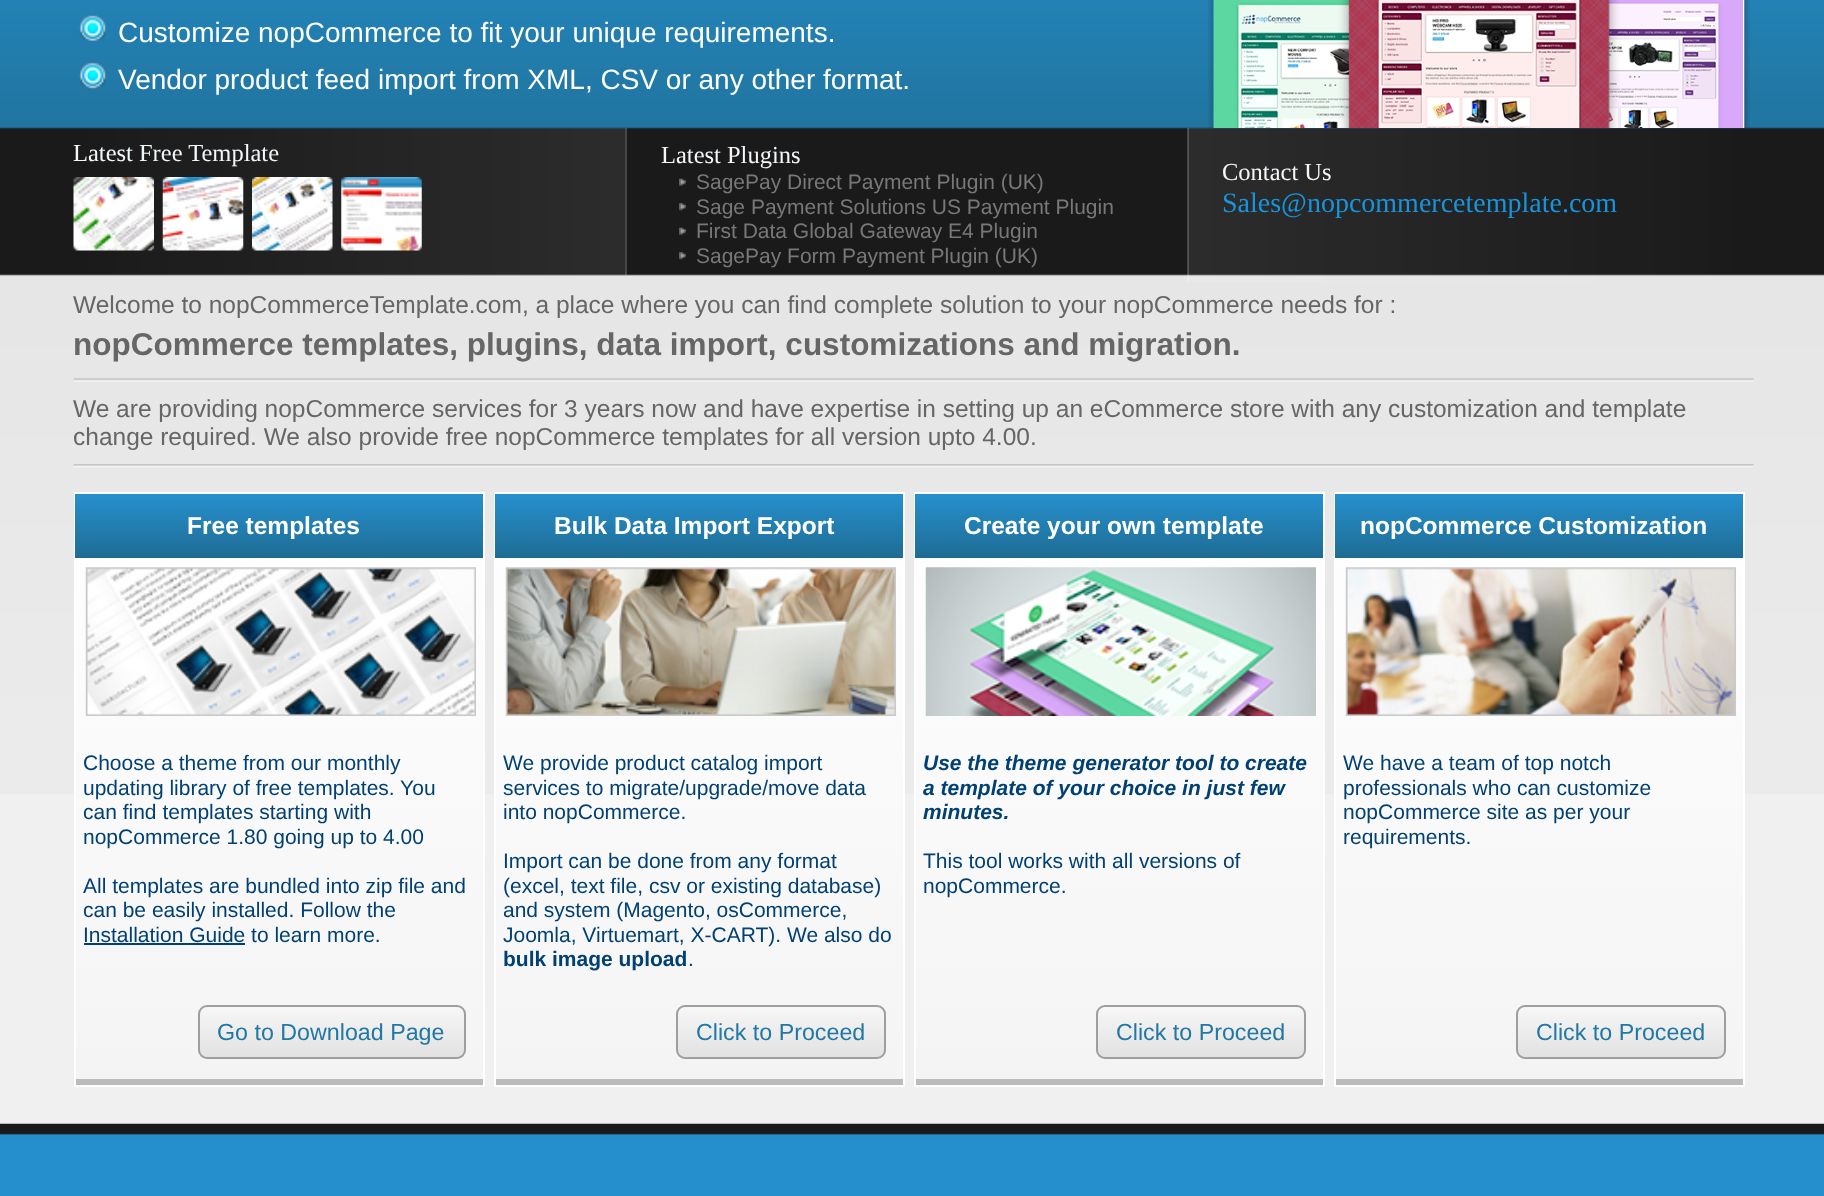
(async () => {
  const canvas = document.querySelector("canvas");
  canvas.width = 1824;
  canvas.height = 1196;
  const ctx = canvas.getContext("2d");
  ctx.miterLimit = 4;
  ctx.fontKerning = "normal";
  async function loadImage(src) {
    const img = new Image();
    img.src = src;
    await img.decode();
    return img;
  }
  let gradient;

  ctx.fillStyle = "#f0f0f0";
  ctx.fillRect(0, 0, 1824, 1196);
  ctx.drawImage(await loadImage("img/1.png"), 0, 0, 1824, 794);
  ctx.drawImage(await loadImage("img/2.png"), 79, 15, 27, 26);
  ctx.drawImage(await loadImage("img/3.png"), 79, 62, 27, 27);
  ctx.drawImage(await loadImage("img/4.png"), 1208, 0, 542, 128);
  ctx.fillStyle = "rgba(255, 255, 255, 0.2)";
  ctx.fillRect(625, 128, 2, 147);
  ctx.drawImage(await loadImage("img/5.png"), 73, 177, 81, 74);
  ctx.drawImage(await loadImage("img/6.png"), 162, 177, 82, 74);
  ctx.drawImage(await loadImage("img/7.png"), 252, 177, 81, 74);
  ctx.drawImage(await loadImage("img/8.png"), 341, 177, 81, 74);
  ctx.drawImage(await loadImage("img/9.png"), 679, 178, 7, 8);
  ctx.drawImage(await loadImage("img/10.png"), 679, 203, 7, 8);
  ctx.drawImage(await loadImage("img/9.png"), 679, 227, 7, 8);
  ctx.drawImage(await loadImage("img/10.png"), 679, 252, 7, 8);
  ctx.fillRect(1187, 128, 2, 154);
  ctx.drawImage(await loadImage("img/11.png"), 73, 378, 1681, 4);
  ctx.drawImage(await loadImage("img/12.png"), 73, 464, 1681, 4);
  gradient = ctx.createLinearGradient(279, 494, 279, 1085);
  gradient.addColorStop(0, "#ffffff");
  gradient.addColorStop(0.99, "#f4f4f4");
  gradient.addColorStop(0.99, "#bbbbbb");
  gradient.addColorStop(1, "#bbbbbb");
  ctx.fillStyle = gradient;
  ctx.fillRect(76, 558, 407, 527);
  ctx.strokeStyle = "#ffffff";
  ctx.lineWidth = 2;
  ctx.strokeRect(75, 493, 409, 593);
  gradient = ctx.createLinearGradient(279, 494, 279, 558);
  gradient.addColorStop(0, "#2690ce");
  gradient.addColorStop(1, "#1e6c93");
  ctx.fillStyle = gradient;
  ctx.fillRect(75, 494, 408, 64);
  ctx.drawImage(await loadImage("img/13.png"), 85, 567, 391, 149);
  ctx.fillStyle = "#014073";
  ctx.fillRect(84, 943, 161, 2);
  ctx.save();
  ctx.beginPath();
  ctx.roundRect(198, 1005, 268, 54, 9);
  ctx.clip();
  gradient = ctx.createLinearGradient(332, 1006, 332, 1057);
  gradient.addColorStop(0, "#f7f7f7");
  gradient.addColorStop(1, "#e2e2e2");
  ctx.fillStyle = gradient;
  ctx.fillRect(198, 1006, 268, 51);
  ctx.restore();
  ctx.beginPath();
  ctx.roundRect(199, 1006, 266, 52, 8);
  ctx.strokeStyle = "#9e9e9e";
  ctx.stroke();
  gradient = ctx.createLinearGradient(699, 494, 699, 1085);
  gradient.addColorStop(0, "#ffffff");
  gradient.addColorStop(0.99, "#f4f4f4");
  gradient.addColorStop(0.99, "#bbbbbb");
  gradient.addColorStop(1, "#bbbbbb");
  ctx.fillStyle = gradient;
  ctx.fillRect(496, 558, 407, 527);
  ctx.strokeStyle = "#ffffff";
  ctx.strokeRect(495, 493, 409, 593);
  gradient = ctx.createLinearGradient(699, 494, 699, 558);
  gradient.addColorStop(0, "#2690ce");
  gradient.addColorStop(1, "#1e6c93");
  ctx.fillStyle = gradient;
  ctx.fillRect(495, 494, 408, 64);
  ctx.drawImage(await loadImage("img/14.png"), 505, 567, 391, 149);
  ctx.save();
  ctx.beginPath();
  ctx.roundRect(676, 1005, 210, 54, 9);
  ctx.clip();
  gradient = ctx.createLinearGradient(781, 1006, 781, 1057);
  gradient.addColorStop(0, "#f7f7f7");
  gradient.addColorStop(1, "#e2e2e2");
  ctx.fillStyle = gradient;
  ctx.fillRect(676, 1006, 210, 51);
  ctx.restore();
  ctx.beginPath();
  ctx.roundRect(677, 1006, 208, 52, 8);
  ctx.strokeStyle = "#9e9e9e";
  ctx.stroke();
  gradient = ctx.createLinearGradient(1119, 494, 1119, 1085);
  gradient.addColorStop(0, "#ffffff");
  gradient.addColorStop(0.99, "#f4f4f4");
  gradient.addColorStop(0.99, "#bbbbbb");
  gradient.addColorStop(1, "#bbbbbb");
  ctx.fillStyle = gradient;
  ctx.fillRect(916, 558, 407, 527);
  ctx.strokeStyle = "#ffffff";
  ctx.strokeRect(915, 493, 409, 593);
  gradient = ctx.createLinearGradient(1119, 494, 1119, 558);
  gradient.addColorStop(0, "#2690ce");
  gradient.addColorStop(1, "#1e6c93");
  ctx.fillStyle = gradient;
  ctx.fillRect(915, 494, 408, 64);
  ctx.drawImage(await loadImage("img/15.png"), 925, 567, 391, 149);
  ctx.save();
  ctx.beginPath();
  ctx.roundRect(1096, 1005, 210, 54, 9);
  ctx.clip();
  gradient = ctx.createLinearGradient(1201, 1006, 1201, 1057);
  gradient.addColorStop(0, "#f7f7f7");
  gradient.addColorStop(1, "#e2e2e2");
  ctx.fillStyle = gradient;
  ctx.fillRect(1096, 1006, 210, 51);
  ctx.restore();
  ctx.beginPath();
  ctx.roundRect(1097, 1006, 208, 52, 8);
  ctx.strokeStyle = "#9e9e9e";
  ctx.stroke();
  gradient = ctx.createLinearGradient(1539, 494, 1539, 1085);
  gradient.addColorStop(0, "#ffffff");
  gradient.addColorStop(0.99, "#f4f4f4");
  gradient.addColorStop(0.99, "#bbbbbb");
  gradient.addColorStop(1, "#bbbbbb");
  ctx.fillStyle = gradient;
  ctx.fillRect(1336, 558, 407, 527);
  ctx.strokeStyle = "#ffffff";
  ctx.strokeRect(1335, 493, 409, 593);
  gradient = ctx.createLinearGradient(1539, 494, 1539, 558);
  gradient.addColorStop(0, "#2690ce");
  gradient.addColorStop(1, "#1e6c93");
  ctx.fillStyle = gradient;
  ctx.fillRect(1335, 494, 408, 64);
  ctx.drawImage(await loadImage("img/16.png"), 1345, 567, 391, 149);
  ctx.save();
  ctx.beginPath();
  ctx.roundRect(1516, 1005, 210, 54, 9);
  ctx.clip();
  gradient = ctx.createLinearGradient(1621, 1006, 1621, 1057);
  gradient.addColorStop(0, "#f7f7f7");
  gradient.addColorStop(1, "#e2e2e2");
  ctx.fillStyle = gradient;
  ctx.fillRect(1516, 1006, 210, 51);
  ctx.restore();
  ctx.beginPath();
  ctx.roundRect(1517, 1006, 208, 52, 8);
  ctx.strokeStyle = "#9e9e9e";
  ctx.stroke();
  ctx.drawImage(await loadImage("img/17.png"), 0, 1123, 1824, 73);
  ctx.font = "28px Liberation Sans";
  ctx.fillStyle = "#ffffff";
  ctx.fillText("Customize nopCommerce to fit your unique requirements.", 118, 42);
  ctx.fillText("Vendor product feed import from XML, CSV or any other format.", 118, 89);
  ctx.font = "24.5px Liberation Serif";
  ctx.fillStyle = "#f3f7fa";
  ctx.fillText("Latest Free Template", 73, 161);
  ctx.fillText("Latest Plugins", 661, 163);
  ctx.font = "21px Liberation Sans";
  ctx.fillStyle = "#787878";
  for (const [text, x, y] of [
    ["SagePay Direct Payment Plugin (UK)", 696, 189],
    ["Sage Payment Solutions US Payment Plugin", 696, 214],
    ["First Data Global Gateway E4 Plugin", 696, 238],
    ["SagePay Form Payment Plugin (UK)", 696, 263],
  ]) {
    ctx.fillText(text, x, y);
  }
  ctx.font = "24.5px Liberation Serif";
  ctx.fillStyle = "#f3f7fa";
  ctx.fillText("Contact Us", 1222, 180);
  ctx.font = "28px Liberation Serif";
  ctx.fillStyle = "#1894dc";
  ctx.fillText("Sales@nopcommercetemplate.com", 1222, 212);
  ctx.font = "24.5px Liberation Sans";
  ctx.fillStyle = "#666666";
  ctx.fillText("Welcome to nopCommerceTemplate.com, a place where you can find complete solution to your nopCommerce needs for :", 73, 313);
  ctx.font = "bold 31.5px Liberation Sans";
  ctx.fillText("nopCommerce templates, plugins, data import, customizations and migration.", 73, 355);
  ctx.font = "24.5px Liberation Sans";
  ctx.fillText("We are providing nopCommerce services for 3 years now and have expertise in setting up an eCommerce store with any customization and template", 73, 417);
  ctx.fillText("change required. We also provide free nopCommerce templates for all version upto 4.00.", 73, 445);
  ctx.font = "bold 24.5px Liberation Sans";
  ctx.fillStyle = "#ffffff";
  ctx.fillText("Free templates", 187, 534);
  ctx.font = "21px Liberation Sans";
  ctx.fillStyle = "#014073";
  for (const [text, x, y] of [
    ["Choose a theme from our monthly", 83, 770],
    ["updating library of free templates. You", 83, 795],
    ["can find templates starting with", 83, 819],
    ["nopCommerce 1.80 going up to 4.00", 83, 844],
    ["All templates are bundled into zip file and", 83, 893],
    ["can be easily installed. Follow the", 83, 917],
    ["Installation Guide to learn more.", 83, 942],
  ]) {
    ctx.fillText(text, x, y);
  }
  ctx.font = "23.25px Liberation Sans";
  ctx.fillStyle = "#2178a5";
  ctx.fillText("Go to Download Page", 217, 1040);
  ctx.font = "bold 24.5px Liberation Sans";
  ctx.fillStyle = "#ffffff";
  ctx.fillText("Bulk Data Import Export", 554, 534);
  ctx.font = "21px Liberation Sans";
  ctx.fillStyle = "#014073";
  for (const [text, x, y] of [
    ["We provide product catalog import", 503, 770],
    ["services to migrate/upgrade/move data", 503, 795],
    ["into nopCommerce.", 503, 819],
    ["Import can be done from any format", 503, 868],
    ["(excel, text file, csv or existing database)", 503, 893],
    ["and system (Magento, osCommerce,", 503, 917],
    ["Joomla, Virtuemart, X-CART). We also do", 503, 942],
  ]) {
    ctx.fillText(text, x, y);
  }
  ctx.font = "bold 21px Liberation Sans";
  ctx.fillText("bulk image upload", 503, 966);
  ctx.font = "21px Liberation Sans";
  ctx.fillText(".", 688, 966);
  ctx.font = "23.25px Liberation Sans";
  ctx.fillStyle = "#2178a5";
  ctx.fillText("Click to Proceed", 696, 1040);
  ctx.font = "bold 24.5px Liberation Sans";
  ctx.fillStyle = "#ffffff";
  ctx.fillText("Create your own template", 964, 534);
  ctx.font = "italic bold 21px Liberation Sans";
  ctx.fillStyle = "#014073";
  for (const [text, x, y] of [
    ["Use the theme generator tool to create", 923, 770],
    ["a template of your choice in just few", 923, 795],
    ["minutes.", 923, 819],
  ]) {
    ctx.fillText(text, x, y);
  }
  ctx.font = "21px Liberation Sans";
  ctx.fillText("This tool works with all versions of", 923, 868);
  ctx.fillText("nopCommerce.", 923, 893);
  ctx.font = "23.25px Liberation Sans";
  ctx.fillStyle = "#2178a5";
  ctx.fillText("Click to Proceed", 1116, 1040);
  ctx.font = "bold 24.5px Liberation Sans";
  ctx.fillStyle = "#ffffff";
  ctx.fillText("nopCommerce Customization", 1360, 534);
  ctx.font = "21px Liberation Sans";
  ctx.fillStyle = "#014073";
  for (const [text, x, y] of [
    ["We have a team of top notch", 1343, 770],
    ["professionals who can customize", 1343, 795],
    ["nopCommerce site as per your", 1343, 819],
    ["requirements.", 1343, 844],
  ]) {
    ctx.fillText(text, x, y);
  }
  ctx.font = "23.25px Liberation Sans";
  ctx.fillStyle = "#2178a5";
  ctx.fillText("Click to Proceed", 1536, 1040);
})();
